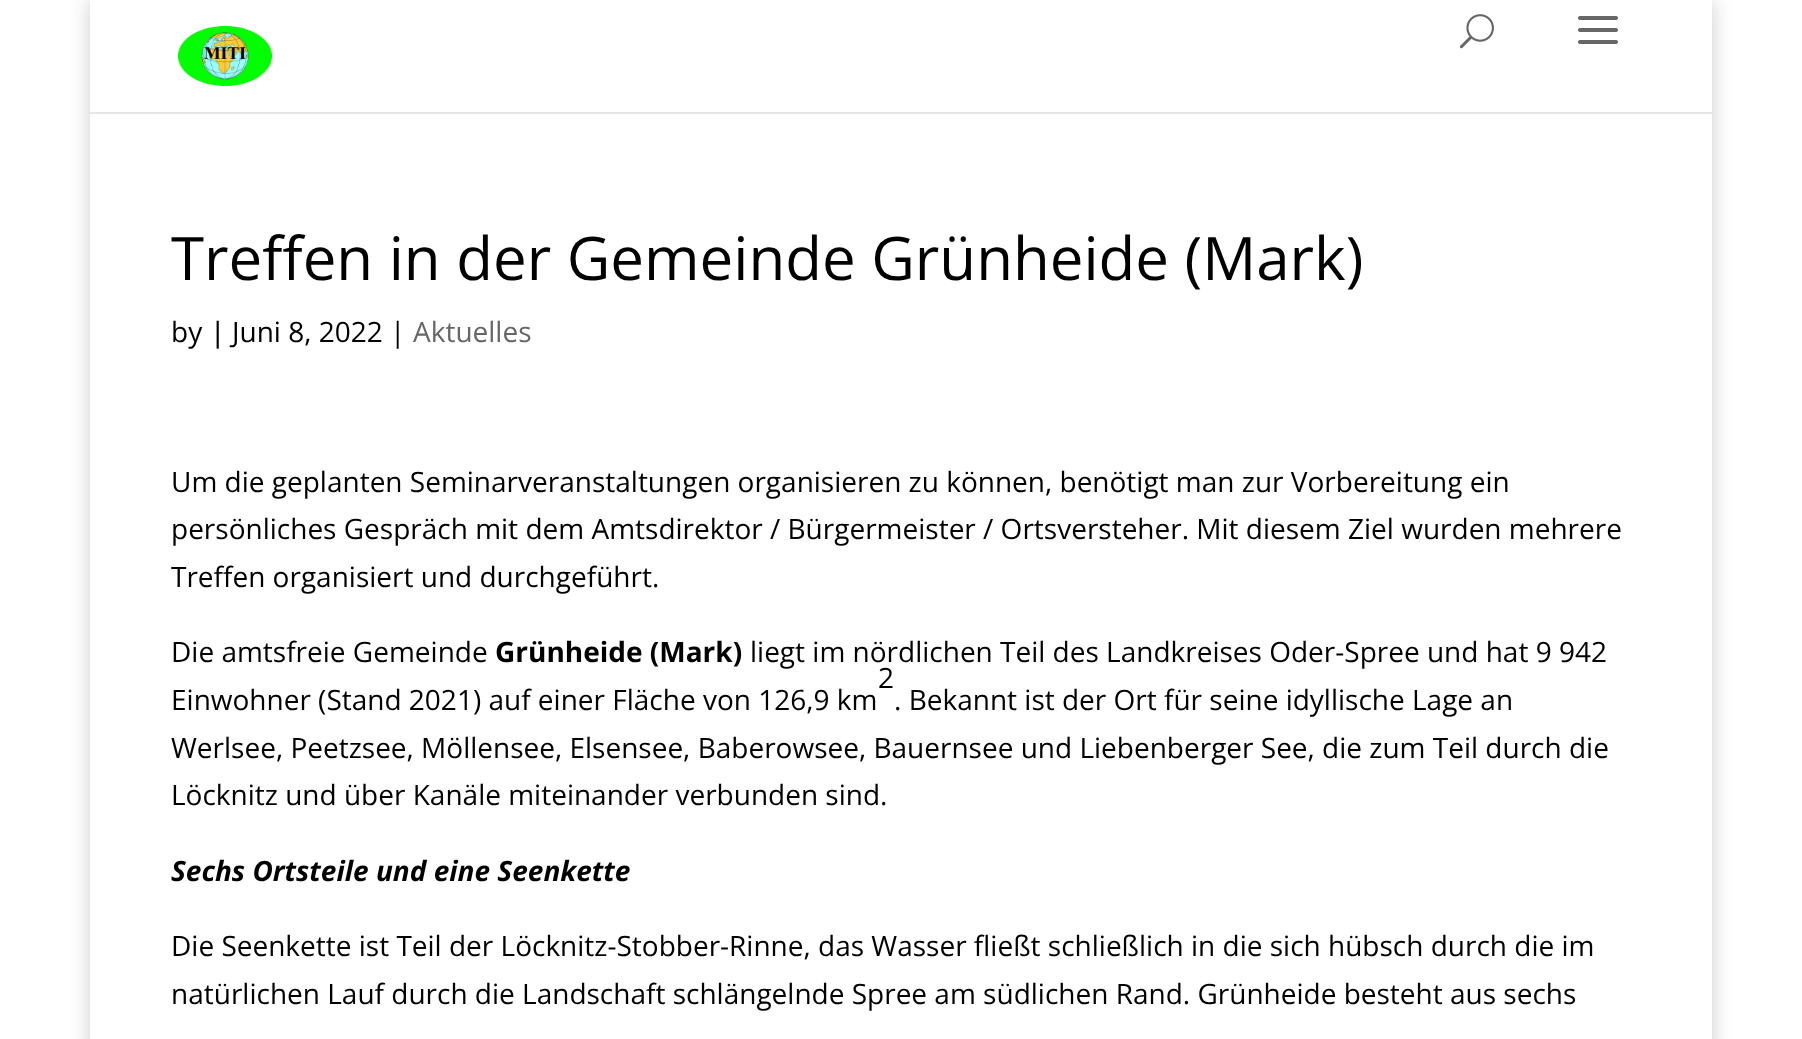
(async () => {
  const canvas = document.querySelector("canvas");
  canvas.width = 1802;
  canvas.height = 1039;
  const ctx = canvas.getContext("2d");
  ctx.miterLimit = 4;
  ctx.fontKerning = "normal";
  async function loadImage(src) {
    const img = new Image();
    img.src = src;
    await img.decode();
    return img;
  }
  let path;

  ctx.fillStyle = "#ffffff";
  ctx.fillRect(0, 0, 1802, 1039);
  ctx.save();
  path = new Path2D("M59 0H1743V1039H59ZM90 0H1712V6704H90Z");
  ctx.clip(path, "evenodd");
  ctx.fillStyle = "rgba(0, 0, 0, 0.2)";
  ctx.filter = "blur(10px)";
  ctx.beginPath();
  ctx.rect(90, 0, 1622, 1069);
  ctx.fill();
  ctx.filter = "none";
  ctx.restore();
  ctx.fillStyle = "#e6e6e6";
  ctx.fillRect(90, 112, 1622, 2);
  ctx.drawImage(await loadImage("img/1.png"), 178, 26, 94, 60);
  ctx.drawImage(await loadImage("img/2.png"), 1459, 14, 35, 35);
  ctx.drawImage(await loadImage("img/3.png"), 1578, 16, 40, 28);
  ctx.font = "60px Open Sans";
  ctx.fillStyle = "#000000";
  ctx.fillText("Treffen in der Gemeinde Grünheide (Mark)", 171, 280);
  ctx.font = "28px Open Sans";
  ctx.fillText("by", 171, 342);
  ctx.font = "500 28px Open Sans";
  ctx.fillText("|", 210, 342);
  ctx.font = "28px Open Sans";
  ctx.fillText("Juni 8, 2022 |", 232, 342);
  ctx.fillStyle = "#666666";
  ctx.fillText("Aktuelles", 413, 342);
  ctx.fillStyle = "#000000";
  for (const [text, x, y] of [
    ["Um die geplanten Seminarveranstaltungen organisieren zu können, benötigt man zur Vorbereitung ein", 171, 492],
    ["persönliches Gespräch mit dem Amtsdirektor / Bürgermeister / Ortsversteher. Mit diesem Ziel wurden mehrere", 171, 539],
    ["Treffen organisiert und durchgeführt.", 171, 587],
    ["Die amtsfreie Gemeinde", 171, 662],
  ]) {
    ctx.fillText(text, x, y);
  }
  ctx.font = "bold 28px Open Sans";
  ctx.fillText("Grünheide (Mark)", 495, 662);
  ctx.font = "28px Open Sans";
  for (const [text, x, y] of [
    ["liegt im nördlichen Teil des Landkreises Oder-Spree und hat 9 942", 750, 662],
    ["2", 878, 688],
    ["Einwohner (Stand 2021) auf einer Fläche von 126,9 km", 171, 710],
    [". Bekannt ist der Ort für seine idyllische Lage an", 894, 710],
    ["Werlsee, Peetzsee, Möllensee, Elsensee, Baberowsee, Bauernsee und Liebenberger See, die zum Teil durch die", 171, 758],
    ["Löcknitz und über Kanäle miteinander verbunden sind.", 171, 805],
  ]) {
    ctx.fillText(text, x, y);
  }
  ctx.font = "italic bold 28px Open Sans";
  ctx.fillText("Sechs Ortsteile und eine Seenkette", 171, 881);
  ctx.font = "28px Open Sans";
  ctx.fillText("Die Seenkette ist Teil der Löcknitz-Stobber-Rinne, das Wasser fließt schließlich in die sich hübsch durch die im", 171, 956);
  ctx.fillText("natürlichen Lauf durch die Landschaft schlängelnde Spree am südlichen Rand. Grünheide besteht aus sechs", 171, 1004);
})();
